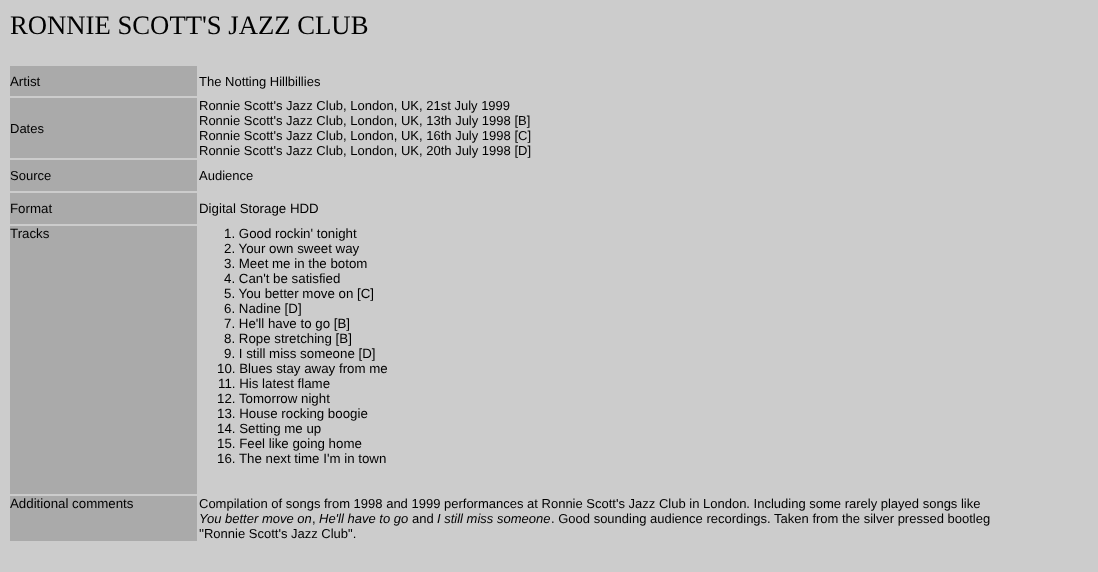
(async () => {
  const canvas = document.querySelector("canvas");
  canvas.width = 1098;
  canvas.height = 572;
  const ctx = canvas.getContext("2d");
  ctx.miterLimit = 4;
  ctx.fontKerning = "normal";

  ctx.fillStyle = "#cccccc";
  ctx.fillRect(0, 0, 1098, 572);
  for (const [x, y, w, h, color] of [
    [10, 66, 187, 30, "#aaaaaa"],
    [10, 98, 187, 60, "#aaaaaa"],
    [10, 160, 187, 31, "#aaaaaa"],
    [10, 193, 187, 31, "#aaaaaa"],
    [10, 226, 187, 268, "#aaaaaa"],
    [10, 496, 187, 45, "#aaaaaa"],
  ]) {
    ctx.fillStyle = color;
    ctx.fillRect(x, y, w, h);
  }
  ctx.font = "26.7px Liberation Serif";
  ctx.fillStyle = "#000000";
  ctx.fillText("RONNIE SCOTT'S JAZZ CLUB", 10, 34);
  ctx.font = "13.3px Liberation Sans";
  ctx.fillText("Artist", 10, 86);
  ctx.font = "13px Liberation Sans";
  for (const [text, x, y] of [
    ["The Notting Hillbillies", 199, 86],
    ["Dates", 10, 133],
    ["Ronnie Scott's Jazz Club, London, UK, 21st July 1999", 199, 110],
    ["Ronnie Scott's Jazz Club, London, UK, 13th July 1998 [B]", 199, 125],
    ["Ronnie Scott's Jazz Club, London, UK, 16th July 1998 [C]", 199, 140],
    ["Ronnie Scott's Jazz Club, London, UK, 20th July 1998 [D]", 199, 155],
    ["Source", 10, 180],
    ["Audience", 199, 180],
  ]) {
    ctx.fillText(text, x, y);
  }
  ctx.font = "13.3px Liberation Sans";
  for (const [text, x, y] of [
    ["Format", 10, 213],
    ["Digital Storage HDD", 199, 213],
    ["Tracks", 10, 238],
    ["1. Good rockin' tonight", 224, 238],
    ["2. Your own sweet way", 224, 253],
    ["3. Meet me in the botom", 224, 268],
    ["4. Can't be satisfied", 224, 283],
    ["5. You better move on [C]", 224, 298],
    ["6. Nadine [D]", 224, 313],
    ["7. He'll have to go [B]", 224, 328],
    ["8. Rope stretching [B]", 224, 343],
    ["9. I still miss someone [D]", 224, 358],
    ["10. Blues stay away from me", 217, 373],
    ["11. His latest flame", 218, 388],
    ["12. Tomorrow night", 217, 403],
    ["13. House rocking boogie", 217, 418],
    ["14. Setting me up", 217, 433],
    ["15. Feel like going home", 217, 448],
    ["16. The next time I'm in town", 217, 463],
    ["Additional comments", 10, 508],
  ]) {
    ctx.fillText(text, x, y);
  }
  ctx.font = "13px Liberation Sans";
  ctx.fillText("Compilation of songs from 1998 and 1999 performances at Ronnie Scott's Jazz Club in London. Including some rarely played songs like", 199, 508);
  ctx.font = "italic 13px Liberation Sans";
  ctx.fillText("You better move on", 199, 523);
  ctx.font = "13px Liberation Sans";
  ctx.fillText(",", 312, 523);
  ctx.font = "italic 13px Liberation Sans";
  ctx.fillText("He'll have to go", 319, 523);
  ctx.font = "13px Liberation Sans";
  ctx.fillText("and", 412, 523);
  ctx.font = "italic 13px Liberation Sans";
  ctx.fillText("I still miss someone", 437, 523);
  ctx.font = "13px Liberation Sans";
  ctx.fillText(". Good sounding audience recordings. Taken from the silver pressed bootleg", 551, 523);
  ctx.fillText("''Ronnie Scott's Jazz Club\".", 199, 538);
})();
